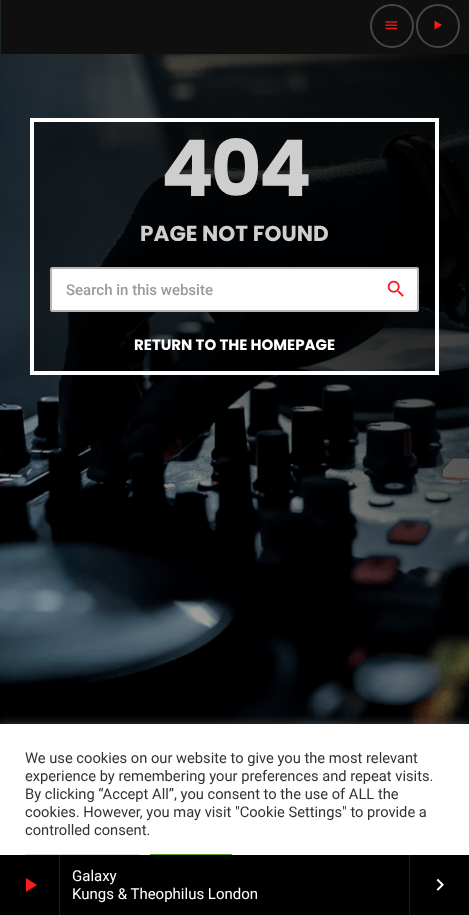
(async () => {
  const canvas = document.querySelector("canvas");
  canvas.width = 469;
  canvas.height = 915;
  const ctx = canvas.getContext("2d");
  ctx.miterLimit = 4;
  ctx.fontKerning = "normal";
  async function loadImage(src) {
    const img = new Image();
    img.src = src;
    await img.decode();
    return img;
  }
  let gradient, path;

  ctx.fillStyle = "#ffffff";
  ctx.fillRect(0, 0, 469, 915);
  ctx.drawImage(await loadImage("img/2.png"), 0, 0, 469, 724);
  gradient = ctx.createLinearGradient(-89, 718, 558, 72);
  gradient.addColorStop(0, "rgba(0, 0, 0, 0.13)");
  gradient.addColorStop(1, "#000000");
  ctx.fillStyle = gradient;
  ctx.fillRect(0, 0, 469, 724);
  ctx.fillStyle = "#0f0f0f";
  ctx.fillRect(1, 0, 468, 54);
  ctx.beginPath();
  ctx.arc(392, 26, 21, 0, Math.PI * 2);
  ctx.strokeStyle = "#474747";
  ctx.lineWidth = 2;
  ctx.stroke();
  ctx.drawImage(await loadImage("img/1.png"), 385, 21, 13, 9);
  ctx.beginPath();
  ctx.arc(438, 26, 21, 0, Math.PI * 2);
  ctx.stroke();
  ctx.fillStyle = "#f51d1d";
  path = new Path2D("M434.5 20.5L442 25L434.5 29.5Z");
  ctx.fill(path);
  ctx.fillStyle = "rgba(0, 0, 0, 0.4)";
  ctx.beginPath();
  ctx.rect(32, 120, 405, 253);
  ctx.fill();
  ctx.strokeStyle = "#ffffff";
  ctx.lineWidth = 4;
  ctx.stroke();
  ctx.fillStyle = "#ffffff";
  ctx.beginPath();
  ctx.roundRect(50, 267, 369, 45, 3);
  ctx.fill();
  ctx.beginPath();
  ctx.roundRect(51, 268, 367, 43, 2);
  ctx.strokeStyle = "rgba(150, 150, 150, 0.7)";
  ctx.lineWidth = 2;
  ctx.stroke();
  ctx.drawImage(await loadImage("img/3.png"), 387, 280, 17, 17);
  ctx.fillStyle = "rgba(172, 171, 171, 0.3)";
  ctx.filter = "blur(5px)";
  ctx.beginPath();
  ctx.rect(0, 723, 469, 191);
  ctx.fill();
  ctx.filter = "none";
  ctx.fillStyle = "#000000";
  ctx.fillRect(0, 855, 469, 60);
  ctx.fillStyle = "#1e1e1e";
  ctx.fillRect(59, 855, 1, 60);
  ctx.fillStyle = "#f51d1d";
  path = new Path2D("M26 878L37 885L26 892Z");
  ctx.fill(path);
  ctx.fillStyle = "#1e1e1e";
  ctx.fillRect(409, 855, 1, 60);
  ctx.drawImage(await loadImage("img/4.png"), 436, 878, 8, 13);
  for (const [x, y, w, h, color] of [
    [0, 724, 469, 131, "#ffffff"],
    [25, 854, 115, 1, "#dedfe0"],
    [150, 854, 82, 1, "#61a229"],
  ]) {
    ctx.fillStyle = color;
    ctx.fillRect(x, y, w, h);
  }
  ctx.letterSpacing = "-3px";
  ctx.font = "bold 78px Poppins";
  ctx.fillStyle = "#cecece";
  ctx.fillText("404", 161, 196);
  ctx.letterSpacing = "0px";
  ctx.font = "bold 21.6px Poppins";
  ctx.fillText("PAGE NOT FOUND", 140, 241);
  ctx.font = "500 15px Roboto";
  ctx.fillStyle = "#9a9a9a";
  ctx.fillText("Search in this website", 66, 295);
  ctx.font = "bold 15px Poppins";
  ctx.fillStyle = "#ffffff";
  ctx.fillText("RETURN TO THE HOMEPAGE", 134, 350);
  ctx.font = "15px Roboto";
  ctx.fillText("Galaxy", 72, 881);
  ctx.fillText("Kungs & Theophilus London", 72, 899);
  ctx.font = "14.7px Roboto";
  ctx.fillStyle = "#333333";
  for (const [text, x, y] of [
    ["We use cookies on our website to give you the most relevant", 25, 763],
    ["experience by remembering your preferences and repeat visits.", 25, 781],
    ["By clicking “Accept All”, you consent to the use of ALL the", 25, 799],
    ["cookies. However, you may visit \"Cookie Settings\" to provide a", 25, 817],
    ["controlled consent.", 25, 835],
  ]) {
    ctx.fillText(text, x, y);
  }
})();
